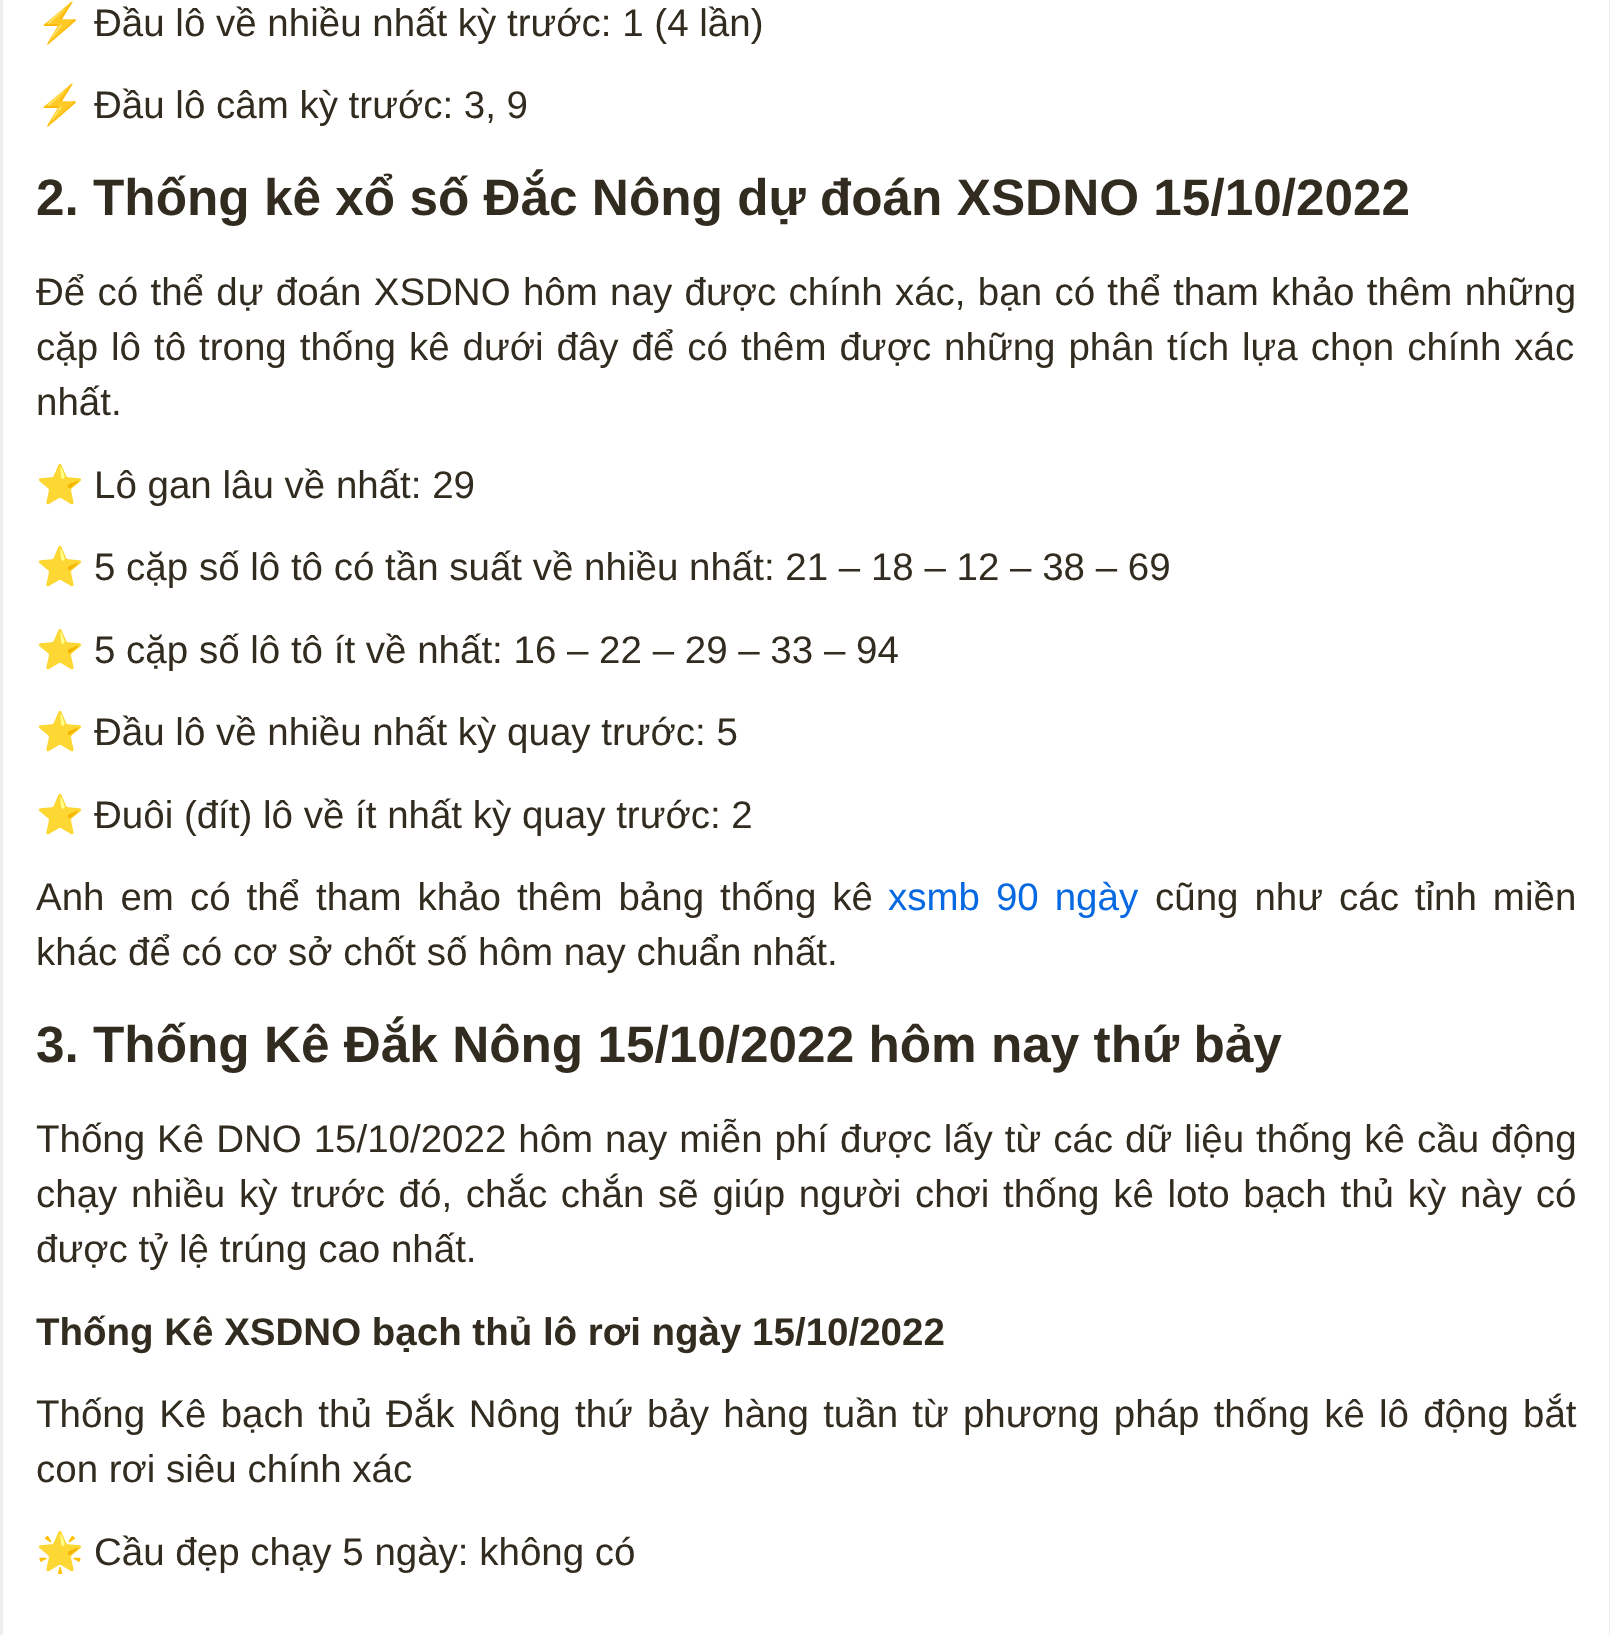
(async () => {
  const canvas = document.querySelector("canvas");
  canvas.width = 1610;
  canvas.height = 1635;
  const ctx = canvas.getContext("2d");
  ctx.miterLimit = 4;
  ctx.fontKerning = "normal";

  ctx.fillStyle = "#ffffff";
  ctx.fillRect(0, 0, 1610, 1635);
  ctx.strokeStyle = "#eeeeee";
  ctx.lineWidth = 3;
  ctx.strokeRect(1.5, -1.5, 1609, 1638);
  ctx.font = "38.5px Noto Color Emoji";
  ctx.fillStyle = "#322c20";
  ctx.fillText("⚡", 36, 36);
  ctx.font = "38.5px Liberation Sans";
  ctx.fillText("Đầu lô về nhiều nhất kỳ trước: 1 (4 lần)", 94, 36);
  ctx.font = "38.5px Noto Color Emoji";
  ctx.fillText("⚡", 36, 118);
  ctx.font = "38.5px Liberation Sans";
  ctx.fillText("Đầu lô câm kỳ trước: 3, 9", 94, 118);
  ctx.font = "bold 51.3px Liberation Sans";
  ctx.fillText("2. Thống kê xổ số Đắc Nông dự đoán XSDNO 15/10/2022", 36, 215);
  ctx.wordSpacing = "1.6px";
  ctx.font = "38.5px Liberation Sans";
  ctx.fillText("Để có thể dự đoán XSDNO hôm nay được chính xác, bạn có thể tham khảo thêm những", 36, 305);
  ctx.wordSpacing = "2.25px";
  ctx.fillText("cặp lô tô trong thống kê dưới đây để có thêm được những phân tích lựa chọn chính xác", 36, 360);
  ctx.wordSpacing = "0px";
  ctx.fillText("nhất.", 36, 415);
  ctx.font = "38.5px Noto Color Emoji";
  ctx.fillText("⭐", 36, 498);
  ctx.font = "38.5px Liberation Sans";
  ctx.fillText("Lô gan lâu về nhất: 29", 94, 498);
  ctx.font = "38.5px Noto Color Emoji";
  ctx.fillText("⭐", 36, 580);
  ctx.font = "38.5px Liberation Sans";
  ctx.fillText("5 cặp số lô tô có tần suất về nhiều nhất: 21 – 18 – 12 – 38 – 69", 94, 580);
  ctx.font = "38.5px Noto Color Emoji";
  ctx.fillText("⭐", 36, 663);
  ctx.font = "38.5px Liberation Sans";
  ctx.fillText("5 cặp số lô tô ít về nhất: 16 – 22 – 29 – 33 – 94", 94, 663);
  ctx.font = "38.5px Noto Color Emoji";
  ctx.fillText("⭐", 36, 745);
  ctx.font = "38.5px Liberation Sans";
  ctx.fillText("Đầu lô về nhiều nhất kỳ quay trước: 5", 94, 745);
  ctx.font = "38.5px Noto Color Emoji";
  ctx.fillText("⭐", 36, 828);
  ctx.font = "38.5px Liberation Sans";
  ctx.fillText("Đuôi (đít) lô về ít nhất kỳ quay trước: 2", 94, 828);
  ctx.wordSpacing = "5.25px";
  ctx.fillText("Anh em có thể tham khảo thêm bảng thống kê", 36, 910);
  ctx.fillStyle = "#0769e2";
  ctx.fillText("xsmb 90 ngày", 888, 910);
  ctx.fillStyle = "#322c20";
  ctx.fillText("cũng như các tỉnh miền", 1155, 910);
  ctx.wordSpacing = "0px";
  ctx.fillText("khác để có cơ sở chốt số hôm nay chuẩn nhất.", 36, 965);
  ctx.font = "bold 51.3px Liberation Sans";
  ctx.fillText("3. Thống Kê Đắk Nông 15/10/2022 hôm nay thứ bảy", 36, 1062);
  ctx.wordSpacing = "1.25px";
  ctx.font = "38.5px Liberation Sans";
  ctx.fillText("Thống Kê DNO 15/10/2022 hôm nay miễn phí được lấy từ các dữ liệu thống kê cầu động", 36, 1152);
  ctx.wordSpacing = "3px";
  ctx.fillText("chạy nhiều kỳ trước đó, chắc chắn sẽ giúp người chơi thống kê loto bạch thủ kỳ này có", 36, 1207);
  ctx.wordSpacing = "0px";
  ctx.fillText("được tỷ lệ trúng cao nhất.", 36, 1262);
  ctx.font = "bold 38.5px Liberation Sans";
  ctx.fillText("Thống Kê XSDNO bạch thủ lô rơi ngày 15/10/2022", 36, 1345);
  ctx.wordSpacing = "3.5px";
  ctx.font = "38.5px Liberation Sans";
  ctx.fillText("Thống Kê bạch thủ Đắk Nông thứ bảy hàng tuần từ phương pháp thống kê lô động bắt", 36, 1427);
  ctx.wordSpacing = "0px";
  ctx.fillText("con rơi siêu chính xác", 36, 1482);
  ctx.font = "38.5px Noto Color Emoji";
  ctx.fillText("🌟", 36, 1565);
  ctx.font = "38.5px Liberation Sans";
  ctx.fillText("Cầu đẹp chạy 5 ngày: không có", 94, 1565);
})();
